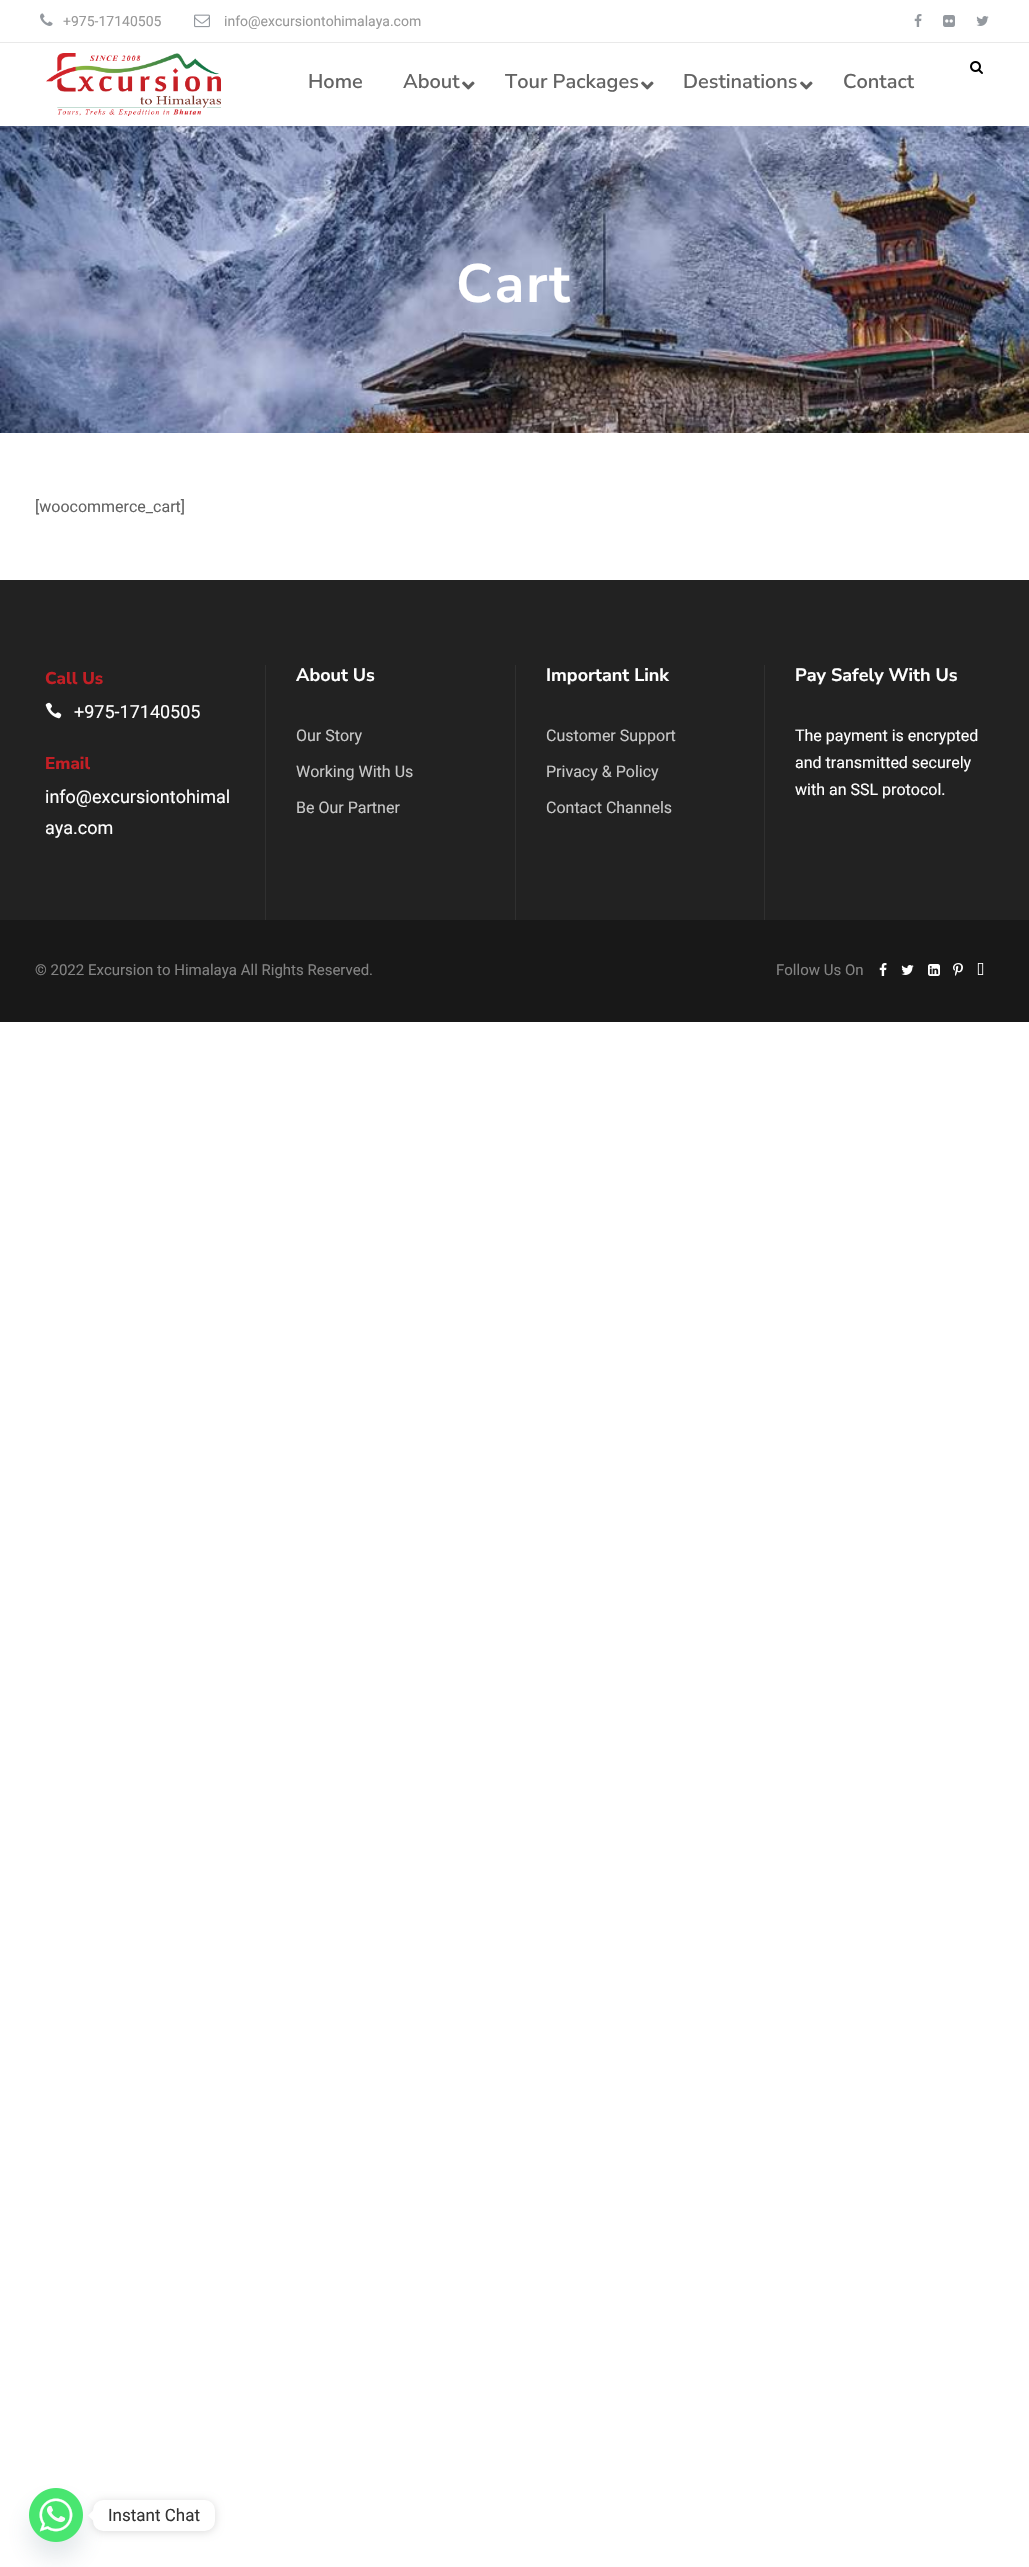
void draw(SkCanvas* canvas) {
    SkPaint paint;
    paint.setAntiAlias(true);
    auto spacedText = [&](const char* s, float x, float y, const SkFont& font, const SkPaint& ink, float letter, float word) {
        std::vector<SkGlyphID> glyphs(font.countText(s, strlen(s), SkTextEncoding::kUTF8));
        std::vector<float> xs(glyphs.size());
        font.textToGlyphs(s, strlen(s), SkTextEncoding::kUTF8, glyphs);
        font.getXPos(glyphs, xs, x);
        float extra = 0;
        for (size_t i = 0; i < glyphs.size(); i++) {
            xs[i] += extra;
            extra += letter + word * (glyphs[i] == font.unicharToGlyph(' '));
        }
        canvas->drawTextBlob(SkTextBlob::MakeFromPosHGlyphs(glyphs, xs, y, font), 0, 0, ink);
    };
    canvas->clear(0xFFFFFFFF);
    paint.setColor(0xFFE9E9E9);
    canvas->drawRect(SkRect::MakeXYWH(0, 42, 1029, 1), paint);
    canvas->drawImageRect(SkImages::DeferredFromEncodedData(SkData::MakeFromFileName("img1.png")), SkRect::MakeXYWH(40, 13, 13, 13), SkSamplingOptions());
    SkFont font1(fontMgr->matchFamilyStyle("Roboto", SkFontStyle::Normal()), 14);
    font1.setSubpixel(true);
    paint.setColor(0xFF999999);
    canvas->drawString("+975-17140505", 63, 26, font1, paint);
    canvas->drawImageRect(SkImages::DeferredFromEncodedData(SkData::MakeFromFileName("img2.png")), SkRect::MakeXYWH(194, 14, 16, 14), SkSamplingOptions());
    canvas->drawString("info@excursiontohimalaya.com", 224, 26, font1, paint);
    canvas->drawImageRect(SkImages::DeferredFromEncodedData(SkData::MakeFromFileName("img3.png")), SkRect::MakeXYWH(914, 14, 8, 13), SkSamplingOptions());
    canvas->drawImageRect(SkImages::DeferredFromEncodedData(SkData::MakeFromFileName("img4.png")), SkRect::MakeXYWH(943, 15, 12, 12), SkSamplingOptions());
    canvas->drawImageRect(SkImages::DeferredFromEncodedData(SkData::MakeFromFileName("img5.png")), SkRect::MakeXYWH(976, 16, 13, 10), SkSamplingOptions());
    canvas->drawImageRect(SkImages::DeferredFromEncodedData(SkData::MakeFromFileName("img6.png")), SkRect::MakeXYWH(46, 53, 175, 63), SkSamplingOptions());
    canvas->drawImageRect(SkImages::DeferredFromEncodedData(SkData::MakeFromFileName("img7.png")), SkRect::MakeXYWH(970, 61, 13, 13), SkSamplingOptions());
    SkFont font2(fontMgr->matchFamilyStyle("Nunito Sans", SkFontStyle(600, SkFontStyle::kNormal_Width, SkFontStyle::kUpright_Slant)), 20);
    font2.setSubpixel(true);
    paint.setColor(0xFF636363);
    canvas->drawString("Home", 308, 88, font2, paint);
    canvas->drawString("About", 403, 88, font2, paint);
    canvas->drawImageRect(SkImages::DeferredFromEncodedData(SkData::MakeFromFileName("img8.png")), SkRect::MakeXYWH(462, 81, 13, 9), SkSamplingOptions());
    canvas->drawString("Tour Packages", 505, 88, font2, paint);
    canvas->drawImageRect(SkImages::DeferredFromEncodedData(SkData::MakeFromFileName("img8.png")), SkRect::MakeXYWH(641, 81, 13, 9), SkSamplingOptions());
    canvas->drawString("Destinations", 683, 88, font2, paint);
    canvas->drawImageRect(SkImages::DeferredFromEncodedData(SkData::MakeFromFileName("img8.png")), SkRect::MakeXYWH(800, 81, 13, 9), SkSamplingOptions());
    canvas->drawString("Contact", 843, 88, font2, paint);
    canvas->drawImageRect(SkImages::DeferredFromEncodedData(SkData::MakeFromFileName("img9.png")), SkRect::MakeXYWH(0, 126, 1029, 307), SkSamplingOptions());
    SkFont font3(fontMgr->matchFamilyStyle("Nunito Sans", SkFontStyle::Bold()), 54);
    font3.setSubpixel(true);
    paint.setColor(0xFFFFFFFF);
    spacedText("Cart", 456, 302, font3, paint, 2, 0);
    SkFont font4(fontMgr->matchFamilyStyle("Roboto", SkFontStyle::Normal()), 16);
    font4.setSubpixel(true);
    paint.setColor(0xFF636363);
    canvas->drawString("[woocommerce_cart]", 35, 512, font4, paint);
    paint.setColor(0xFF222222);
    canvas->drawRect(SkRect::MakeXYWH(0, 580, 1029, 340), paint);
    SkFont font5(fontMgr->matchFamilyStyle("Nunito Sans", SkFontStyle(800, SkFontStyle::kNormal_Width, SkFontStyle::kUpright_Slant)), 17);
    font5.setSubpixel(true);
    paint.setColor(0xFFC31F25);
    canvas->drawString("Call Us", 45, 684, font5, paint);
    canvas->drawImageRect(SkImages::DeferredFromEncodedData(SkData::MakeFromFileName("img10.png")), SkRect::MakeXYWH(45, 702, 17, 17), SkSamplingOptions());
    SkFont font6(fontMgr->matchFamilyStyle("Roboto", SkFontStyle::Normal()), 18);
    font6.setSubpixel(true);
    paint.setColor(0xFFFFFFFF);
    canvas->drawString("+975-17140505", 74, 718, font6, paint);
    paint.setColor(0xFFC31F25);
    canvas->drawString("Email", 45, 769, font5, paint);
    paint.setColor(0xFFFFFFFF);
    canvas->drawString("info@excursiontohimal", 45, 803, font6, paint);
    canvas->drawString("aya.com", 45, 834, font6, paint);
    paint.setColor(0xFF303030);
    canvas->drawRect(SkRect::MakeXYWH(265, 665, 1, 255), paint);
    SkFont font7(fontMgr->matchFamilyStyle("Nunito Sans", SkFontStyle::Bold()), 18);
    font7.setSubpixel(true);
    paint.setColor(0xFFFFFFFF);
    canvas->drawString("About Us", 296, 681, font7, paint);
    paint.setColor(0xFFC7C7C7);
    canvas->drawString("Our Story", 296, 741, font4, paint);
    canvas->drawString("Working With Us", 296, 777, font4, paint);
    canvas->drawString("Be Our Partner", 296, 813, font4, paint);
    paint.setColor(0xFF303030);
    canvas->drawRect(SkRect::MakeXYWH(515, 665, 1, 255), paint);
    paint.setColor(0xFFFFFFFF);
    canvas->drawString("Important Link", 546, 681, font7, paint);
    paint.setColor(0xFFC7C7C7);
    canvas->drawString("Customer Support", 546, 741, font4, paint);
    canvas->drawString("Privacy & Policy", 546, 777, font4, paint);
    canvas->drawString("Contact Channels", 546, 813, font4, paint);
    paint.setColor(0xFF303030);
    canvas->drawRect(SkRect::MakeXYWH(764, 665, 1, 255), paint);
    paint.setColor(0xFFFFFFFF);
    canvas->drawString("Pay Safely With Us", 795, 681, font7, paint);
    canvas->drawString("The payment is encrypted", 795, 741, font4, paint);
    canvas->drawString("and transmitted securely", 795, 768, font4, paint);
    canvas->drawString("with an SSL protocol.", 795, 795, font4, paint);
    paint.setColor(0xFF181818);
    canvas->drawRect(SkRect::MakeXYWH(0, 920, 1029, 102), paint);
    SkFont font8(fontMgr->matchFamilyStyle("Roboto", SkFontStyle::Normal()), 15);
    font8.setSubpixel(true);
    paint.setColor(0xFF838383);
    canvas->drawString("© 2022 Excursion to Himalaya All Rights Reserved.", 35, 975, font8, paint);
    canvas->drawString("Follow Us On", 776, 975, font8, paint);
    canvas->drawImageRect(SkImages::DeferredFromEncodedData(SkData::MakeFromFileName("img11.png")), SkRect::MakeXYWH(879, 963, 8, 13), SkSamplingOptions());
    canvas->drawImageRect(SkImages::DeferredFromEncodedData(SkData::MakeFromFileName("img12.png")), SkRect::MakeXYWH(901, 965, 13, 10), SkSamplingOptions());
    canvas->drawImageRect(SkImages::DeferredFromEncodedData(SkData::MakeFromFileName("img13.png")), SkRect::MakeXYWH(928, 964, 12, 12), SkSamplingOptions());
    canvas->drawImageRect(SkImages::DeferredFromEncodedData(SkData::MakeFromFileName("img14.png")), SkRect::MakeXYWH(953, 963, 10, 13), SkSamplingOptions());
    canvas->drawImageRect(SkImages::DeferredFromEncodedData(SkData::MakeFromFileName("img15.png")), SkRect::MakeXYWH(977, 963, 7, 12), SkSamplingOptions());
    paint.setColor(0x2949687E);
    paint.setMaskFilter(SkMaskFilter::MakeBlur(kNormal_SkBlurStyle, 12));
    canvas->drawRoundRect(SkRect::MakeXYWH(29, 2504, 54, 54), 27, 27, paint);
    paint.setMaskFilter(nullptr);
    canvas->drawImageRect(SkImages::DeferredFromEncodedData(SkData::MakeFromFileName("img16.png")), SkRect::MakeXYWH(29, 2488, 54, 54), SkSamplingOptions());
    paint.setColor(0x26000000);
    paint.setMaskFilter(SkMaskFilter::MakeBlur(kNormal_SkBlurStyle, 4));
    canvas->drawRoundRect(SkRect::MakeXYWH(93, 2501, 122, 31), 10, 10, paint);
    paint.setMaskFilter(nullptr);
    paint.setColor(0xFFFFFFFF);
    canvas->drawRoundRect(SkRect::MakeXYWH(93, 2500, 122, 31), 10, 10, paint);
    canvas->drawPath(SkPathBuilder().moveTo(93, 2510.5f).lineTo(93, 2520.5f).lineTo(88, 2515.5f).close().detach(), paint);
    SkFont font9(fontMgr->matchFamilyStyle("Roboto", SkFontStyle::Normal()), 17);
    font9.setSubpixel(true);
    paint.setColor(0xFF333333);
    canvas->drawString("Instant Chat", 108, 2521, font9, paint);
}
